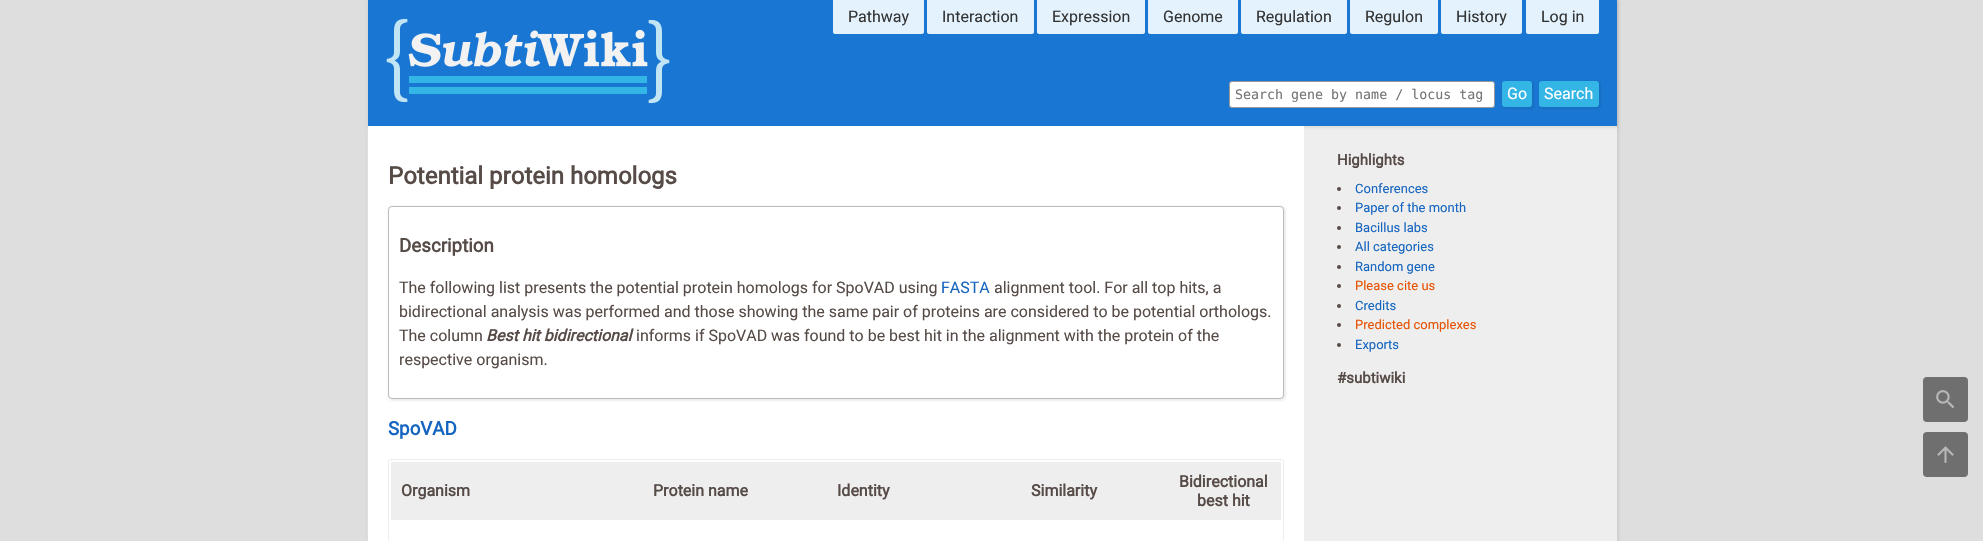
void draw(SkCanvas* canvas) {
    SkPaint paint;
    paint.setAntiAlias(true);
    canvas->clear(0xFFDEDEDE);
    paint.setColor(0x12000000);
    paint.setMaskFilter(SkMaskFilter::MakeBlur(kNormal_SkBlurStyle, 1));
    canvas->drawRect(SkRect::MakeXYWH(367, 0, 1252, 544), paint);
    paint.setMaskFilter(nullptr);
    paint.setColor(0xFFEEEEEE);
    canvas->drawRect(SkRect::MakeXYWH(1304, 126, 313, 415), paint);
    paint.setColor(0xFFDEDEDE);
    canvas->drawRect(SkRect::MakeXYWH(367, 0, 1, 541), paint);
    paint.setColor(0x12000000);
    paint.setMaskFilter(SkMaskFilter::MakeBlur(kNormal_SkBlurStyle, 1));
    canvas->drawRect(SkRect::MakeXYWH(368, 0, 1251, 128), paint);
    paint.setMaskFilter(nullptr);
    paint.setColor(0xFF1976D2);
    canvas->drawRect(SkRect::MakeXYWH(368, 0, 1249, 126), paint);
    canvas->drawImageRect(SkImages::DeferredFromEncodedData(SkData::MakeFromFileName("img1.png")), SkRect::MakeXYWH(386, 18, 284, 86), SkSamplingOptions());
    paint.setColor(0xFFE3F2FD);
    canvas->drawPath(SkPathBuilder().moveTo(833, 0).lineTo(924, 0).lineTo(924, 32).cubicTo(924, 33, 923, 34, 922, 34).lineTo(835, 34).cubicTo(834, 34, 833, 33, 833, 32).close().detach(), paint);
    SkFont font1(fontMgr->matchFamilyStyle("Roboto", SkFontStyle::Normal()), 16);
    font1.setSubpixel(true);
    paint.setColor(0xFF333333);
    canvas->drawString("Pathway", 848, 22, font1, paint);
    paint.setColor(0xFFE3F2FD);
    canvas->drawPath(SkPathBuilder().moveTo(927, 0).lineTo(1034, 0).lineTo(1034, 32).cubicTo(1034, 33, 1033, 34, 1032, 34).lineTo(929, 34).cubicTo(928, 34, 927, 33, 927, 32).close().detach(), paint);
    paint.setColor(0xFF333333);
    canvas->drawString("Interaction", 942, 22, font1, paint);
    paint.setColor(0xFFE3F2FD);
    canvas->drawPath(SkPathBuilder().moveTo(1037, 0).lineTo(1145, 0).lineTo(1145, 32).cubicTo(1145, 33, 1144, 34, 1143, 34).lineTo(1039, 34).cubicTo(1038, 34, 1037, 33, 1037, 32).close().detach(), paint);
    paint.setColor(0xFF333333);
    canvas->drawString("Expression", 1052, 22, font1, paint);
    paint.setColor(0xFFE3F2FD);
    canvas->drawPath(SkPathBuilder().moveTo(1148, 0).lineTo(1238, 0).lineTo(1238, 32).cubicTo(1238, 33, 1237, 34, 1236, 34).lineTo(1150, 34).cubicTo(1149, 34, 1148, 33, 1148, 32).close().detach(), paint);
    paint.setColor(0xFF333333);
    canvas->drawString("Genome", 1163, 22, font1, paint);
    paint.setColor(0xFFE3F2FD);
    canvas->drawPath(SkPathBuilder().moveTo(1241, 0).lineTo(1347, 0).lineTo(1347, 32).cubicTo(1347, 33, 1346, 34, 1345, 34).lineTo(1243, 34).cubicTo(1242, 34, 1241, 33, 1241, 32).close().detach(), paint);
    paint.setColor(0xFF333333);
    canvas->drawString("Regulation", 1256, 22, font1, paint);
    paint.setColor(0xFFE3F2FD);
    canvas->drawPath(SkPathBuilder().moveTo(1350, 0).lineTo(1438, 0).lineTo(1438, 32).cubicTo(1438, 33, 1437, 34, 1436, 34).lineTo(1352, 34).cubicTo(1351, 34, 1350, 33, 1350, 32).close().detach(), paint);
    paint.setColor(0xFF333333);
    canvas->drawString("Regulon", 1365, 22, font1, paint);
    paint.setColor(0xFFE3F2FD);
    canvas->drawPath(SkPathBuilder().moveTo(1441, 0).lineTo(1522, 0).lineTo(1522, 32).cubicTo(1522, 33, 1521, 34, 1520, 34).lineTo(1443, 34).cubicTo(1442, 34, 1441, 33, 1441, 32).close().detach(), paint);
    paint.setColor(0xFF333333);
    canvas->drawString("History", 1456, 22, font1, paint);
    paint.setColor(0xFFE3F2FD);
    canvas->drawPath(SkPathBuilder().moveTo(1526, 0).lineTo(1599, 0).lineTo(1599, 32).cubicTo(1599, 33, 1598, 34, 1597, 34).lineTo(1528, 34).cubicTo(1527, 34, 1526, 33, 1526, 32).close().detach(), paint);
    paint.setColor(0xFF333333);
    canvas->drawString("Log in", 1541, 22, font1, paint);
    paint.setColor(0xFFFFFFFF);
    canvas->drawRoundRect(SkRect::MakeXYWH(1229.5f, 81.5f, 265, 26), 2.5f, 2.5f, paint);
    paint.setStyle(SkPaint::kStroke_Style);
    paint.setStrokeWidth(1);
    paint.setColor(0xFF999999);
    canvas->drawRoundRect(SkRect::MakeXYWH(1229.5f, 81.5f, 265, 26), 2.5f, 2.5f, paint);
    SkFont font2(fontMgr->matchFamilyStyle("DejaVu Sans Mono", SkFontStyle::Normal()), 13.3f);
    font2.setSubpixel(true);
    paint.setStyle(SkPaint::kFill_Style);
    paint.setColor(0xFF757575);
    canvas->drawString("Search gene by name / locus tag", 1235, 99, font2, paint);
    paint.setColor(0x12000000);
    paint.setMaskFilter(SkMaskFilter::MakeBlur(kNormal_SkBlurStyle, 1));
    canvas->drawRoundRect(SkRect::MakeXYWH(1502, 81, 32, 28), 4, 4, paint);
    paint.setMaskFilter(nullptr);
    paint.setColor(0xFF33B5E5);
    canvas->drawRoundRect(SkRect::MakeXYWH(1502, 81, 30, 26), 3, 3, paint);
    paint.setColor(0xFFFFFFFF);
    canvas->drawString("Go", 1507, 99, font1, paint);
    paint.setColor(0x12000000);
    paint.setMaskFilter(SkMaskFilter::MakeBlur(kNormal_SkBlurStyle, 1));
    canvas->drawRoundRect(SkRect::MakeXYWH(1539, 81, 62, 28), 4, 4, paint);
    paint.setMaskFilter(nullptr);
    paint.setColor(0xFF33B5E5);
    canvas->drawRoundRect(SkRect::MakeXYWH(1539, 81, 60, 26), 3, 3, paint);
    paint.setColor(0xFFFFFFFF);
    canvas->drawString("Search", 1544, 99, font1, paint);
    canvas->drawRect(SkRect::MakeXYWH(368, 126, 936, 415), paint);
    SkFont font3(fontMgr->matchFamilyStyle("Roboto", SkFontStyle::Bold()), 24);
    font3.setSubpixel(true);
    paint.setColor(0xFF564B47);
    canvas->drawString("Potential protein homologs", 388, 184, font3, paint);
    paint.setColor(0x12000000);
    paint.setMaskFilter(SkMaskFilter::MakeBlur(kNormal_SkBlurStyle, 1));
    canvas->drawRoundRect(SkRect::MakeXYWH(388, 206, 898, 195), 5, 5, paint);
    paint.setMaskFilter(nullptr);
    paint.setColor(0xFFFFFFFF);
    canvas->drawRoundRect(SkRect::MakeXYWH(388.5f, 206.5f, 895, 192), 3.5f, 3.5f, paint);
    paint.setStyle(SkPaint::kStroke_Style);
    paint.setColor(0xFFBBBBBB);
    canvas->drawRoundRect(SkRect::MakeXYWH(388.5f, 206.5f, 895, 192), 3.5f, 3.5f, paint);
    SkFont font4(fontMgr->matchFamilyStyle("Roboto", SkFontStyle::Bold()), 18.75f);
    font4.setSubpixel(true);
    paint.setStyle(SkPaint::kFill_Style);
    paint.setColor(0xFF564B47);
    canvas->drawString("Description", 399, 252, font4, paint);
    canvas->drawString("The following list presents the potential protein homologs for SpoVAD using", 399, 293, font1, paint);
    paint.setColor(0xFF1565C0);
    canvas->drawString("FASTA", 941, 293, font1, paint);
    paint.setColor(0xFF564B47);
    canvas->drawString("alignment tool. For all top hits, a", 994, 293, font1, paint);
    canvas->drawString("bidirectional analysis was performed and those showing the same pair of proteins are considered to be potential orthologs.", 399, 317, font1, paint);
    canvas->drawString("The column", 399, 341, font1, paint);
    SkFont font5(fontMgr->matchFamilyStyle("Roboto", SkFontStyle::BoldItalic()), 16);
    font5.setSubpixel(true);
    canvas->drawString("Best hit bidirectional", 486, 341, font5, paint);
    canvas->drawString("informs if SpoVAD was found to be best hit in the alignment with the protein of the", 636, 341, font1, paint);
    canvas->drawString("respective organism.", 399, 365, font1, paint);
    paint.setColor(0xFF1565C0);
    canvas->drawString("SpoVAD", 388, 435, font4, paint);
    paint.setStyle(SkPaint::kStroke_Style);
    paint.setColor(0xFFEEEEEE);
    canvas->drawRoundRect(SkRect::MakeXYWH(388.5f, 459.5f, 895, 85), 2.5f, 2.5f, paint);
    paint.setStyle(SkPaint::kFill_Style);
    canvas->drawRect(SkRect::MakeXYWH(391, 462, 890, 58), paint);
    SkFont font6(fontMgr->matchFamilyStyle("Roboto", SkFontStyle::Bold()), 16);
    font6.setSubpixel(true);
    paint.setColor(0xFF564B47);
    canvas->drawString("Organism", 401, 496, font6, paint);
    canvas->drawString("Protein name", 653, 496, font6, paint);
    canvas->drawString("Identity", 837, 496, font6, paint);
    canvas->drawString("Similarity", 1031, 496, font6, paint);
    canvas->drawString("Bidirectional", 1179, 487, font6, paint);
    canvas->drawString("best hit", 1197, 506, font6, paint);
    SkFont font7(fontMgr->matchFamilyStyle("Roboto", SkFontStyle::Bold()), 15);
    font7.setSubpixel(true);
    canvas->drawString("Highlights", 1337, 165, font7, paint);
    canvas->drawCircle(1339, 189, 2, paint);
    SkFont font8(fontMgr->matchFamilyStyle("Roboto", SkFontStyle::Normal()), 13);
    font8.setSubpixel(true);
    paint.setColor(0xFF1565C0);
    canvas->drawString("Conferences", 1355, 193, font8, paint);
    paint.setColor(0xFF564B47);
    canvas->drawCircle(1339, 208, 2, paint);
    paint.setColor(0xFF1565C0);
    canvas->drawString("Paper of the month", 1355, 212, font8, paint);
    paint.setColor(0xFF564B47);
    canvas->drawCircle(1339, 228, 2, paint);
    paint.setColor(0xFF1565C0);
    canvas->drawString("Bacillus labs", 1355, 232, font8, paint);
    paint.setColor(0xFF564B47);
    canvas->drawCircle(1339, 247, 2, paint);
    paint.setColor(0xFF1565C0);
    canvas->drawString("All categories", 1355, 251, font8, paint);
    paint.setColor(0xFF564B47);
    canvas->drawCircle(1339, 267, 2, paint);
    paint.setColor(0xFF1565C0);
    canvas->drawString("Random gene", 1355, 271, font8, paint);
    paint.setColor(0xFF564B47);
    canvas->drawCircle(1339, 286, 2, paint);
    paint.setColor(0xFFE65100);
    canvas->drawString("Please cite us", 1355, 290, font8, paint);
    paint.setColor(0xFF564B47);
    canvas->drawCircle(1339, 306, 2, paint);
    paint.setColor(0xFF1565C0);
    canvas->drawString("Credits", 1355, 310, font8, paint);
    paint.setColor(0xFF564B47);
    canvas->drawCircle(1339, 325, 2, paint);
    paint.setColor(0xFFE65100);
    canvas->drawString("Predicted complexes", 1355, 329, font8, paint);
    paint.setColor(0xFF564B47);
    canvas->drawCircle(1339, 345, 2, paint);
    paint.setColor(0xFF1565C0);
    canvas->drawString("Exports", 1355, 349, font8, paint);
    paint.setColor(0xFF564B47);
    canvas->drawString("#subtiwiki", 1337, 383, font7, paint);
    paint.setColor(0xFF6F6F6F);
    canvas->drawRoundRect(SkRect::MakeXYWH(1923, 377, 45, 45), 4, 4, paint);
    canvas->drawImageRect(SkImages::DeferredFromEncodedData(SkData::MakeFromFileName("img2.png")), SkRect::MakeXYWH(1936, 390, 19, 19), SkSamplingOptions());
    canvas->drawRoundRect(SkRect::MakeXYWH(1923, 432, 45, 45), 4, 4, paint);
    canvas->drawImageRect(SkImages::DeferredFromEncodedData(SkData::MakeFromFileName("img3.png")), SkRect::MakeXYWH(1937, 446, 17, 17), SkSamplingOptions());
}
